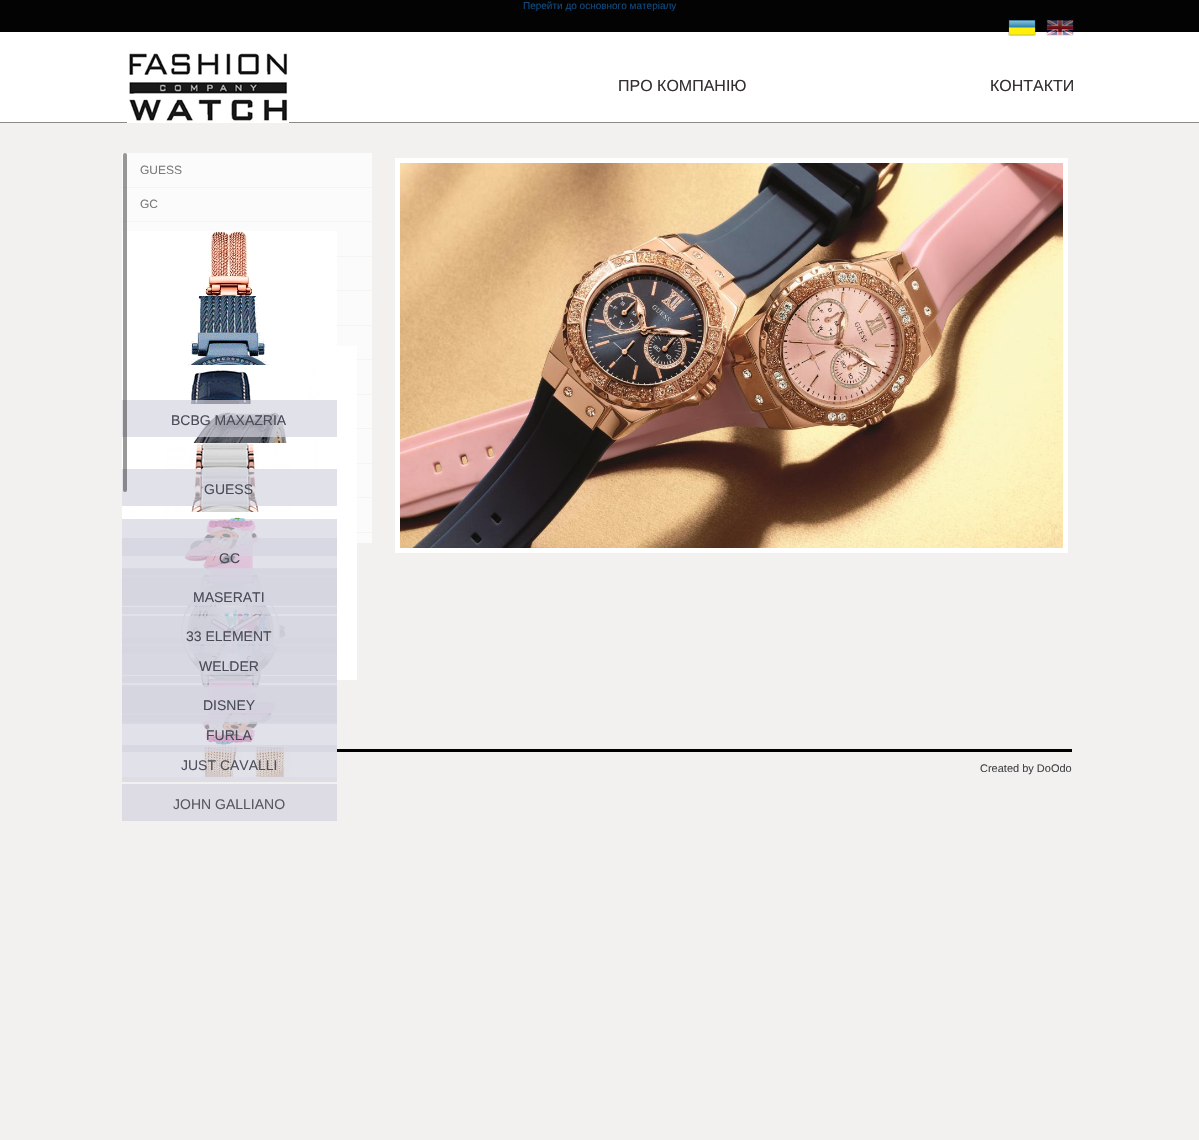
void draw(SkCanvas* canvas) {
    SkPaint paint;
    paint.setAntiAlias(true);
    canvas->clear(0xFFF3F0F0);
    canvas->drawImageRect(SkImages::DeferredFromEncodedData(SkData::MakeFromFileName("img1.png")), SkRect::MakeXYWH(0, 0, 1199, 123), SkSamplingOptions());
    SkFont font1(fontMgr->matchFamilyStyle("Liberation Sans", SkFontStyle::Normal()), 10);
    font1.setSubpixel(true);
    paint.setColor(0xFF0F497D);
    canvas->drawString("Перейти до основного матеріалу", 523, 9, font1, paint);
    canvas->drawImageRect(SkImages::DeferredFromEncodedData(SkData::MakeFromFileName("img2.png")), SkRect::MakeXYWH(1008, 20, 28, 16), SkSamplingOptions());
    canvas->drawImageRect(SkImages::DeferredFromEncodedData(SkData::MakeFromFileName("img3.png")), SkRect::MakeXYWH(1046, 20, 28, 16), SkSamplingOptions());
    canvas->drawImageRect(SkImages::DeferredFromEncodedData(SkData::MakeFromFileName("img4.png")), SkRect::MakeXYWH(127, 53, 162, 70), SkSamplingOptions());
    SkFont font2(fontMgr->matchFamilyStyle("Liberation Sans", SkFontStyle::Normal()), 16);
    font2.setSubpixel(true);
    paint.setColor(0xFF343030);
    canvas->drawString("ПРО КОМПАНІЮ", 618, 91, font2, paint);
    canvas->drawString("КОНТАКТИ", 990, 91, font2, paint);
    paint.setColor(0xFFFBFBFB);
    canvas->drawRect(SkRect::MakeXYWH(122, 153, 250, 390), paint);
    paint.setColor(0xFFF5F4F3);
    canvas->drawRect(SkRect::MakeXYWH(122, 187, 250, 1), paint);
    canvas->drawRect(SkRect::MakeXYWH(122, 221, 250, 1), paint);
    canvas->drawImageRect(SkImages::DeferredFromEncodedData(SkData::MakeFromFileName("img6.png")), SkRect::MakeXYWH(122, 346, 235, 215), SkSamplingOptions());
    canvas->drawImageRect(SkImages::DeferredFromEncodedData(SkData::MakeFromFileName("img7.png")), SkRect::MakeXYWH(122, 231, 215, 231), SkSamplingOptions());
    canvas->drawImageRect(SkImages::DeferredFromEncodedData(SkData::MakeFromFileName("img10.png")), SkRect::MakeXYWH(154, 365, 169, 138), SkSamplingOptions());
    canvas->drawImageRect(SkImages::DeferredFromEncodedData(SkData::MakeFromFileName("img9.png")), SkRect::MakeXYWH(122, 503, 215, 39), SkSamplingOptions());
    canvas->drawImageRect(SkImages::DeferredFromEncodedData(SkData::MakeFromFileName("img12.png")), SkRect::MakeXYWH(153, 404, 161, 138), SkSamplingOptions());
    paint.setColor(0xB3D4D4DF);
    canvas->drawRect(SkRect::MakeXYWH(122, 400, 215, 37), paint);
    canvas->drawImageRect(SkImages::DeferredFromEncodedData(SkData::MakeFromFileName("img14.png")), SkRect::MakeXYWH(154, 473, 154, 69), SkSamplingOptions());
    canvas->drawImageRect(SkImages::DeferredFromEncodedData(SkData::MakeFromFileName("img16.png")), SkRect::MakeXYWH(122, 542, 215, 235), SkSamplingOptions());
    canvas->drawImageRect(SkImages::DeferredFromEncodedData(SkData::MakeFromFileName("img13.png")), SkRect::MakeXYWH(165, 443, 126, 235), SkSamplingOptions());
    canvas->drawRect(SkRect::MakeXYWH(122, 469, 215, 37), paint);
    paint.setColor(0x66000000);
    canvas->drawRoundRect(SkRect::MakeXYWH(123, 153, 4, 339), 2, 2, paint);
    SkFont font3(fontMgr->matchFamilyStyle("Liberation Sans", SkFontStyle::Normal()), 12);
    font3.setSubpixel(true);
    paint.setColor(0xFF7C7A7A);
    canvas->drawString("GUESS", 140, 174, font3, paint);
    canvas->drawString("GC", 140, 208, font3, paint);
    paint.setColor(0xFFF5F4F3);
    canvas->drawRect(SkRect::MakeXYWH(337, 256, 35, 1), paint);
    canvas->drawRect(SkRect::MakeXYWH(337, 290, 35, 1), paint);
    canvas->drawRect(SkRect::MakeXYWH(337, 325, 35, 1), paint);
    canvas->drawRect(SkRect::MakeXYWH(357, 359, 15, 1), paint);
    canvas->drawRect(SkRect::MakeXYWH(357, 394, 15, 1), paint);
    canvas->drawRect(SkRect::MakeXYWH(357, 428, 15, 1), paint);
    canvas->drawRect(SkRect::MakeXYWH(357, 463, 15, 1), paint);
    canvas->drawRect(SkRect::MakeXYWH(357, 497, 15, 1), paint);
    canvas->drawRect(SkRect::MakeXYWH(357, 532, 15, 1), paint);
    paint.setStyle(SkPaint::kStroke_Style);
    paint.setStrokeWidth(5);
    paint.setColor(0xFFFFFFFF);
    canvas->drawRect(SkRect::MakeXYWH(397.5f, 160.5f, 668, 390), paint);
    canvas->drawImageRect(SkImages::DeferredFromEncodedData(SkData::MakeFromFileName("img5.png")), SkRect::MakeXYWH(400, 163, 663, 385), SkSamplingOptions());
    canvas->drawImageRect(SkImages::DeferredFromEncodedData(SkData::MakeFromFileName("img15.png")), SkRect::MakeXYWH(169, 512, 129, 235), SkSamplingOptions());
    paint.setStyle(SkPaint::kFill_Style);
    paint.setColor(0xB3D4D4DF);
    canvas->drawRect(SkRect::MakeXYWH(122, 519, 215, 37), paint);
    SkFont font4(fontMgr->matchFamilyStyle("Liberation Sans", SkFontStyle::Normal()), 14);
    font4.setSubpixel(true);
    paint.setColor(0xFF494B57);
    canvas->drawString("BCBG MAXAZRIA", 171, 425, font4, paint);
    canvas->drawImageRect(SkImages::DeferredFromEncodedData(SkData::MakeFromFileName("img8.png")), SkRect::MakeXYWH(162, 296, 155, 69), SkSamplingOptions());
    canvas->drawString("GUESS", 204, 494, font4, paint);
    paint.setColor(0xB3D4D4DF);
    canvas->drawRect(SkRect::MakeXYWH(122, 687, 215, 37), paint);
    canvas->drawRect(SkRect::MakeXYWH(122, 676, 215, 37), paint);
    canvas->drawRect(SkRect::MakeXYWH(122, 569, 215, 37), paint);
    canvas->drawRect(SkRect::MakeXYWH(122, 568, 215, 37), paint);
    canvas->drawRect(SkRect::MakeXYWH(122, 538, 215, 37), paint);
    paint.setColor(0xFF494B57);
    canvas->drawString("GC", 219, 563, font4, paint);
    paint.setColor(0xB3D4D4DF);
    canvas->drawRect(SkRect::MakeXYWH(122, 638, 215, 37), paint);
    canvas->drawImageRect(SkImages::DeferredFromEncodedData(SkData::MakeFromFileName("img11.png")), SkRect::MakeXYWH(337, 561, 20, 119), SkSamplingOptions());
    canvas->drawRect(SkRect::MakeXYWH(122, 607, 215, 37), paint);
    canvas->drawRect(SkRect::MakeXYWH(122, 577, 215, 37), paint);
    paint.setColor(0xFF494B57);
    canvas->drawString("MASERATI", 193, 602, font4, paint);
    paint.setColor(0xB3D4D4DF);
    canvas->drawRect(SkRect::MakeXYWH(122, 646, 215, 37), paint);
    canvas->drawRect(SkRect::MakeXYWH(122, 616, 215, 37), paint);
    paint.setColor(0xFF494B57);
    canvas->drawString("33 ELEMENT", 186, 641, font4, paint);
    canvas->drawString("WELDER", 199, 671, font4, paint);
    paint.setColor(0xB3D4D4DF);
    canvas->drawRect(SkRect::MakeXYWH(122, 745, 215, 37), paint);
    canvas->drawRect(SkRect::MakeXYWH(122, 715, 215, 37), paint);
    canvas->drawRect(SkRect::MakeXYWH(122, 685, 215, 37), paint);
    paint.setColor(0xFF494B57);
    canvas->drawString("DISNEY", 203, 710, font4, paint);
    canvas->drawString("FURLA", 206, 740, font4, paint);
    paint.setColor(0xFF50505B);
    canvas->drawString("JUST CAVALLI", 181, 770, font4, paint);
    paint.setColor(0xFFDDDCE4);
    canvas->drawRect(SkRect::MakeXYWH(122, 784, 215, 37), paint);
    paint.setColor(0xFF575862);
    canvas->drawString("JOHN GALLIANO", 173, 809, font4, paint);
    paint.setColor(0xFF000000);
    canvas->drawRect(SkRect::MakeXYWH(337, 749, 735, 3), paint);
    SkFont font5(fontMgr->matchFamilyStyle("Liberation Sans", SkFontStyle::Normal()), 11);
    font5.setSubpixel(true);
    paint.setColor(0xFF424447);
    canvas->drawString("Created by DoOdo", 980, 772, font5, paint);
}
